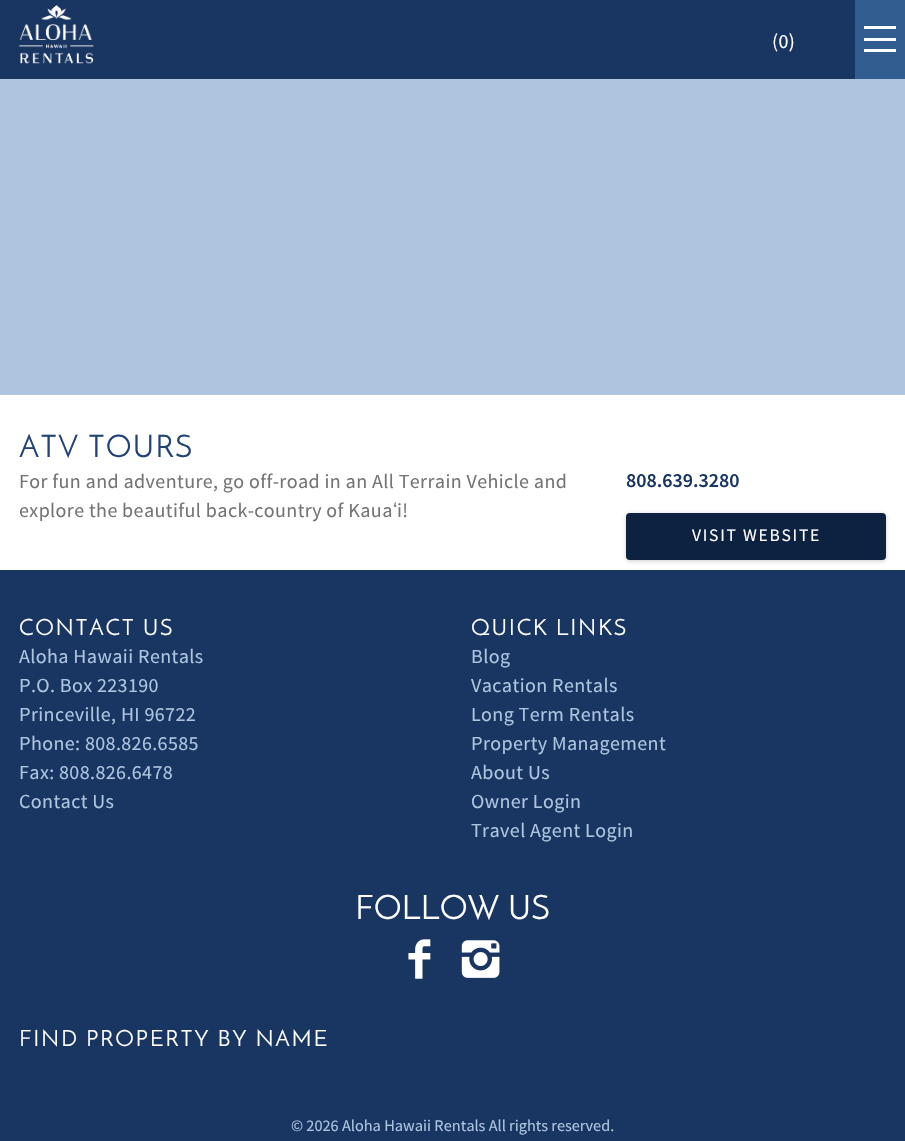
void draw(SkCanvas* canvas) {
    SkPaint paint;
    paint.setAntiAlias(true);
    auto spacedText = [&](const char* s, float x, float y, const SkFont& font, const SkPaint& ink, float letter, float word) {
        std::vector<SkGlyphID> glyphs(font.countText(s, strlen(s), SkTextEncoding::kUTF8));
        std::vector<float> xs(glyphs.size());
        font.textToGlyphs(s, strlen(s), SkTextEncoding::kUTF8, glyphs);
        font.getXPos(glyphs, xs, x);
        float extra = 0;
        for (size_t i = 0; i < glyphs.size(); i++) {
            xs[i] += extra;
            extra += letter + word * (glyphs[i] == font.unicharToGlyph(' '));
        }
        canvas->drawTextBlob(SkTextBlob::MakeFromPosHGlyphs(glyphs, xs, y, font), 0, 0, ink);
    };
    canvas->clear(0xFFFFFFFF);
    paint.setColor(0xFF193561);
    canvas->drawRect(SkRect::MakeXYWH(0, 0, 855, 79), paint);
    canvas->drawImageRect(SkImages::DeferredFromEncodedData(SkData::MakeFromFileName("img1.png")), SkRect::MakeXYWH(18, 5, 76, 59), SkSamplingOptions());
    SkFont font1(fontMgr->matchFamilyStyle("Source Sans Pro", SkFontStyle::Normal()), 20);
    font1.setSubpixel(true);
    paint.setColor(0xFFFFFFFF);
    spacedText("(0)", 772, 48, font1, paint, 0.4f, 0);
    paint.setColor(0xFF315D91);
    canvas->drawRect(SkRect::MakeXYWH(855, 0, 50, 79), paint);
    paint.setColor(0xFFFFFFFF);
    canvas->drawRect(SkRect::MakeXYWH(864, 38, 32, 3), paint);
    canvas->drawRect(SkRect::MakeXYWH(864, 26, 32, 3), paint);
    canvas->drawRect(SkRect::MakeXYWH(864, 49, 32, 3), paint);
    paint.setColor(0xFFAEC5E0);
    canvas->drawRect(SkRect::MakeXYWH(0, 79, 905, 316), paint);
    SkFont font2(fontMgr->matchFamilyStyle("Josefin Sans", SkFontStyle::Normal()), 31.25f);
    font2.setSubpixel(true);
    paint.setColor(0xFF224377);
    spacedText("ATV TOURS", 19, 457, font2, paint, 1, 0);
    paint.setColor(0xFF747474);
    spacedText("For fun and adventure, go off-road in an All Terrain Vehicle and", 19, 488, font1, paint, 0.4f, 0);
    spacedText("explore the beautiful back-country of Kaua", 19, 517, font1, paint, 0.4f, 0);
    SkFont font3(fontMgr->matchFamilyStyle("Liberation Sans", SkFontStyle::Normal()), 20);
    font3.setSubpixel(true);
    spacedText("ʻ", 393, 517, font3, paint, 0.4f, 0);
    spacedText("i!", 397, 517, font1, paint, 0.4f, 0);
    SkFont font4(fontMgr->matchFamilyStyle("Source Sans Pro", SkFontStyle(600, SkFontStyle::kNormal_Width, SkFontStyle::kUpright_Slant)), 20);
    font4.setSubpixel(true);
    paint.setColor(0xFF193561);
    canvas->drawString("808.639.3280", 626, 487, font4, paint);
    paint.setColor(0x33000000);
    paint.setMaskFilter(SkMaskFilter::MakeBlur(kNormal_SkBlurStyle, 2));
    canvas->drawRoundRect(SkRect::MakeXYWH(626, 514, 260, 47), 4, 4, paint);
    paint.setMaskFilter(nullptr);
    paint.setColor(0xFF0D2140);
    canvas->drawRoundRect(SkRect::MakeXYWH(626, 513, 260, 47), 4, 4, paint);
    SkFont font5(fontMgr->matchFamilyStyle("Source Sans Pro", SkFontStyle::Normal()), 17.5f);
    font5.setSubpixel(true);
    paint.setColor(0xFFFFFFFF);
    spacedText("VISIT WEBSITE", 692, 541, font5, paint, 1.75f, 0);
    paint.setColor(0xFF193561);
    canvas->drawRect(SkRect::MakeXYWH(0, 570, 905, 571), paint);
    SkFont font6(fontMgr->matchFamilyStyle("Josefin Sans", SkFontStyle::Normal()), 22.5f);
    font6.setSubpixel(true);
    paint.setColor(0xFFFFFFFF);
    spacedText("CONTACT US", 19, 635, font6, paint, 1.7f, 0);
    paint.setColor(0xFFAEC5E0);
    spacedText("Aloha Hawaii Rentals", 19, 663, font1, paint, 0.4f, 0);
    spacedText("P.O. Box 223190", 19, 692, font1, paint, 0.4f, 0);
    spacedText("Princeville, HI 96722", 19, 721, font1, paint, 0.4f, 0);
    spacedText("Phone: 808.826.6585", 19, 750, font1, paint, 0.4f, 0);
    spacedText("Fax: 808.826.6478", 19, 779, font1, paint, 0.4f, 0);
    spacedText("Contact Us", 19, 808, font1, paint, 0.4f, 0);
    paint.setColor(0xFFFFFFFF);
    spacedText("QUICK LINKS", 471, 635, font6, paint, 1.7f, 0);
    paint.setColor(0xFFAEC5E0);
    spacedText("Blog", 471, 663, font1, paint, 0.4f, 0);
    spacedText("Vacation Rentals", 471, 692, font1, paint, 0.4f, 0);
    spacedText("Long Term Rentals", 471, 721, font1, paint, 0.4f, 0);
    spacedText("Property Management", 471, 750, font1, paint, 0.4f, 0);
    spacedText("About Us", 471, 779, font1, paint, 0.4f, 0);
    spacedText("Owner Login", 471, 808, font1, paint, 0.4f, 0);
    spacedText("Travel Agent Login", 471, 837, font1, paint, 0.4f, 0);
    SkFont font7(fontMgr->matchFamilyStyle("Josefin Sans", SkFontStyle::Normal()), 33.75f);
    font7.setSubpixel(true);
    paint.setColor(0xFFFFFFFF);
    canvas->drawString("FOLLOW US", 355, 919, font7, paint);
    canvas->drawImageRect(SkImages::DeferredFromEncodedData(SkData::MakeFromFileName("img2.png")), SkRect::MakeXYWH(408, 939, 23, 40), SkSamplingOptions());
    canvas->drawImageRect(SkImages::DeferredFromEncodedData(SkData::MakeFromFileName("img3.png")), SkRect::MakeXYWH(461, 940, 39, 38), SkSamplingOptions());
    spacedText("FIND PROPERTY BY NAME", 19, 1046, font6, paint, 1.7f, 0);
    SkFont font8(fontMgr->matchFamilyStyle("Source Sans Pro", SkFontStyle::Normal()), 16.25f);
    font8.setSubpixel(true);
    paint.setColor(0xFFAEC5E0);
    canvas->drawString("© 2026 Aloha Hawaii Rentals All rights reserved.", 291, 1131, font8, paint);
}
